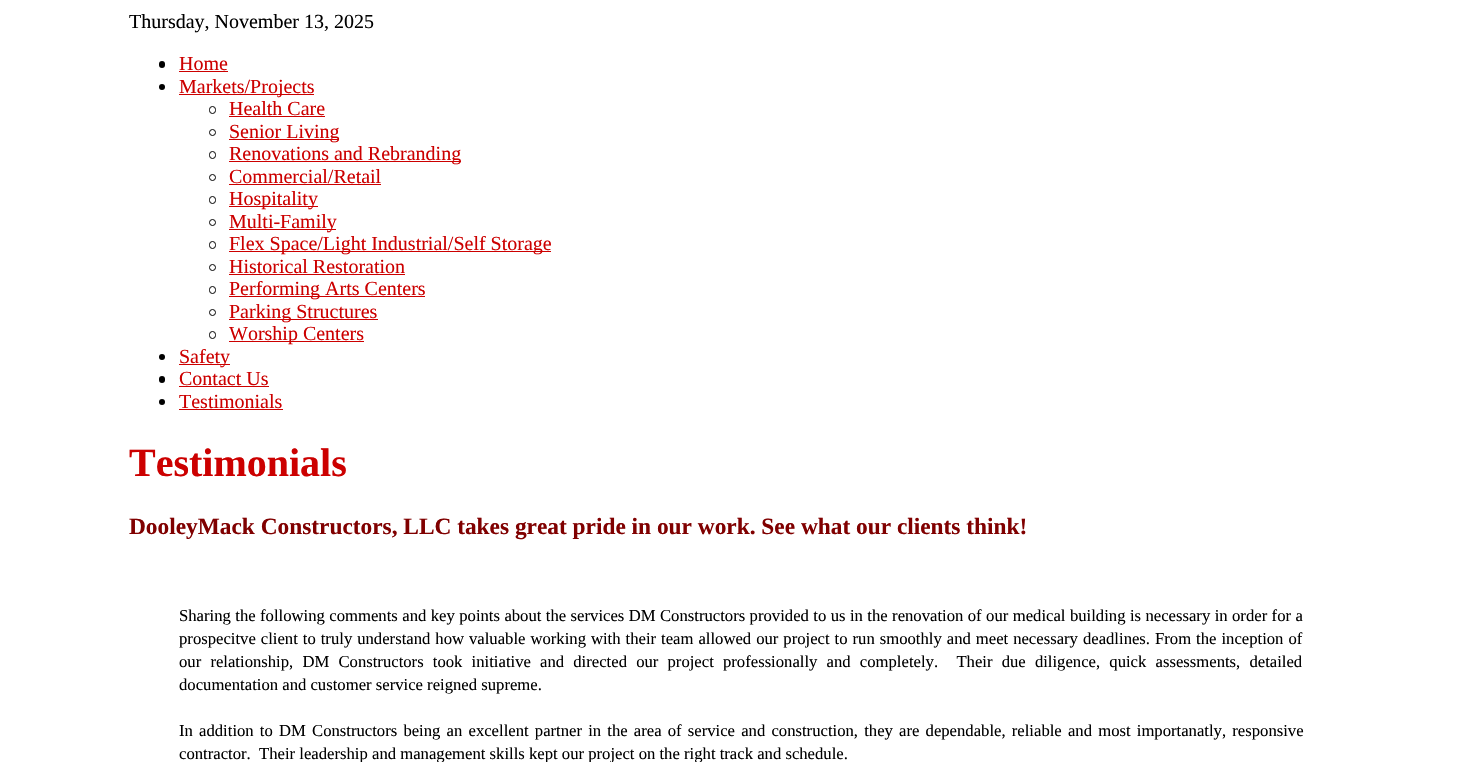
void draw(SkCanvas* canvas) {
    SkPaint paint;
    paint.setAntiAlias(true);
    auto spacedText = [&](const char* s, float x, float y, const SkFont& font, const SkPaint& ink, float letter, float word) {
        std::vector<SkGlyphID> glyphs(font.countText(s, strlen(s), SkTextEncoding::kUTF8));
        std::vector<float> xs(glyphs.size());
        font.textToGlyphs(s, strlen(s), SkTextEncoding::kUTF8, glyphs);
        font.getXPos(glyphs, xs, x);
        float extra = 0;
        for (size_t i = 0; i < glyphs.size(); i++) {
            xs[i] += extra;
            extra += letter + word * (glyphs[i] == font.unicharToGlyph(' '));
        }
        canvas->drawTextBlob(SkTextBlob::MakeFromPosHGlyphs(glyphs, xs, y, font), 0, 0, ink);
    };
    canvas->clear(0xFFFFFFFF);
    SkFont font1(fontMgr->matchFamilyStyle("Liberation Serif", SkFontStyle::Normal()), 20);
    font1.setSubpixel(true);
    paint.setColor(0xFF000000);
    canvas->drawString("Thursday, November 13, 2025", 129, 28, font1, paint);
    canvas->drawRoundRect(SkRect::MakeXYWH(159, 61, 6, 7), 3, 3, paint);
    paint.setColor(0xFFCC0000);
    canvas->drawString("Home", 179, 70, font1, paint);
    canvas->drawRect(SkRect::MakeXYWH(179, 71, 49, 1), paint);
    paint.setColor(0xFF000000);
    canvas->drawCircle(162, 87, 3, paint);
    paint.setColor(0xFFCC0000);
    canvas->drawRect(SkRect::MakeXYWH(179, 94, 135, 1), paint);
    canvas->drawString("Markets/Projects", 179, 93, font1, paint);
    paint.setStyle(SkPaint::kStroke_Style);
    paint.setStrokeWidth(1);
    paint.setColor(0xFF000000);
    canvas->drawRoundRect(SkRect::MakeXYWH(209.5f, 106.5f, 6, 7), 3, 3, paint);
    paint.setStyle(SkPaint::kFill_Style);
    paint.setColor(0xFFCC0000);
    canvas->drawString("Health Care", 229, 115, font1, paint);
    canvas->drawRect(SkRect::MakeXYWH(229, 116, 96, 1), paint);
    paint.setStyle(SkPaint::kStroke_Style);
    paint.setColor(0xFF000000);
    canvas->drawCircle(212.5f, 132.5f, 3, paint);
    paint.setStyle(SkPaint::kFill_Style);
    paint.setColor(0xFFCC0000);
    canvas->drawRect(SkRect::MakeXYWH(229, 139, 110, 1), paint);
    canvas->drawString("Senior Living", 229, 138, font1, paint);
    paint.setStyle(SkPaint::kStroke_Style);
    paint.setColor(0xFF000000);
    canvas->drawRoundRect(SkRect::MakeXYWH(209.5f, 151.5f, 6, 7), 3, 3, paint);
    paint.setStyle(SkPaint::kFill_Style);
    paint.setColor(0xFFCC0000);
    canvas->drawRect(SkRect::MakeXYWH(229, 161, 232, 1), paint);
    canvas->drawString("Renovations and Rebranding", 229, 160, font1, paint);
    paint.setStyle(SkPaint::kStroke_Style);
    paint.setColor(0xFF000000);
    canvas->drawCircle(212.5f, 177.5f, 3, paint);
    paint.setStyle(SkPaint::kFill_Style);
    paint.setColor(0xFFCC0000);
    canvas->drawString("Commercial/Retail", 229, 183, font1, paint);
    canvas->drawRect(SkRect::MakeXYWH(229, 184, 152, 1), paint);
    paint.setStyle(SkPaint::kStroke_Style);
    paint.setColor(0xFF000000);
    canvas->drawRoundRect(SkRect::MakeXYWH(209.5f, 196.5f, 6, 7), 3, 3, paint);
    paint.setStyle(SkPaint::kFill_Style);
    paint.setColor(0xFFCC0000);
    canvas->drawRect(SkRect::MakeXYWH(229, 206, 89, 1), paint);
    canvas->drawString("Hospitality", 229, 205, font1, paint);
    paint.setStyle(SkPaint::kStroke_Style);
    paint.setColor(0xFF000000);
    canvas->drawCircle(212.5f, 222.5f, 3, paint);
    paint.setStyle(SkPaint::kFill_Style);
    paint.setColor(0xFFCC0000);
    canvas->drawRect(SkRect::MakeXYWH(229, 229, 107, 1), paint);
    canvas->drawString("Multi-Family", 229, 228, font1, paint);
    paint.setStyle(SkPaint::kStroke_Style);
    paint.setColor(0xFF000000);
    canvas->drawRoundRect(SkRect::MakeXYWH(209.5f, 241.5f, 6, 7), 3, 3, paint);
    paint.setStyle(SkPaint::kFill_Style);
    paint.setColor(0xFFCC0000);
    canvas->drawRect(SkRect::MakeXYWH(229, 251, 322, 1), paint);
    canvas->drawString("Flex Space/Light Industrial/Self Storage", 229, 250, font1, paint);
    paint.setStyle(SkPaint::kStroke_Style);
    paint.setColor(0xFF000000);
    canvas->drawCircle(212.5f, 267.5f, 3, paint);
    paint.setStyle(SkPaint::kFill_Style);
    paint.setColor(0xFFCC0000);
    canvas->drawString("Historical Restoration", 229, 273, font1, paint);
    canvas->drawRect(SkRect::MakeXYWH(229, 274, 176, 1), paint);
    paint.setStyle(SkPaint::kStroke_Style);
    paint.setColor(0xFF000000);
    canvas->drawRoundRect(SkRect::MakeXYWH(209.5f, 286.5f, 6, 7), 3, 3, paint);
    paint.setStyle(SkPaint::kFill_Style);
    paint.setColor(0xFFCC0000);
    canvas->drawRect(SkRect::MakeXYWH(229, 296, 196, 1), paint);
    canvas->drawString("Performing Arts Centers", 229, 295, font1, paint);
    paint.setStyle(SkPaint::kStroke_Style);
    paint.setColor(0xFF000000);
    canvas->drawCircle(212.5f, 312.5f, 3, paint);
    paint.setStyle(SkPaint::kFill_Style);
    paint.setColor(0xFFCC0000);
    canvas->drawRect(SkRect::MakeXYWH(229, 319, 149, 1), paint);
    canvas->drawString("Parking Structures", 229, 318, font1, paint);
    paint.setStyle(SkPaint::kStroke_Style);
    paint.setColor(0xFF000000);
    canvas->drawRoundRect(SkRect::MakeXYWH(209.5f, 331.5f, 6, 7), 3, 3, paint);
    paint.setStyle(SkPaint::kFill_Style);
    paint.setColor(0xFFCC0000);
    canvas->drawRect(SkRect::MakeXYWH(229, 341, 135, 1), paint);
    canvas->drawString("Worship Centers", 229, 340, font1, paint);
    paint.setColor(0xFF000000);
    canvas->drawCircle(162, 357, 3, paint);
    paint.setColor(0xFFCC0000);
    canvas->drawRect(SkRect::MakeXYWH(179, 364, 51, 1), paint);
    canvas->drawString("Safety", 179, 363, font1, paint);
    paint.setColor(0xFF000000);
    canvas->drawRoundRect(SkRect::MakeXYWH(159, 376, 6, 7), 3, 3, paint);
    paint.setColor(0xFFCC0000);
    canvas->drawString("Contact Us", 179, 385, font1, paint);
    canvas->drawRect(SkRect::MakeXYWH(179, 386, 90, 1), paint);
    paint.setColor(0xFF000000);
    canvas->drawCircle(162, 402, 3, paint);
    paint.setColor(0xFFCC0000);
    canvas->drawString("Testimonials", 179, 408, font1, paint);
    canvas->drawRect(SkRect::MakeXYWH(179, 409, 104, 1), paint);
    SkFont font2(fontMgr->matchFamilyStyle("Liberation Serif", SkFontStyle::Bold()), 40);
    font2.setSubpixel(true);
    canvas->drawString("Testimonials", 129, 476, font2, paint);
    SkFont font3(fontMgr->matchFamilyStyle("Liberation Serif", SkFontStyle::Bold()), 23.35f);
    font3.setSubpixel(true);
    paint.setColor(0xFF800000);
    canvas->drawString("DooleyMack Constructors, LLC takes great pride in our work. See what our clients think!", 129, 534, font3, paint);
    SkFont font4(fontMgr->matchFamilyStyle("Liberation Serif", SkFontStyle::Normal()), 16.67f);
    font4.setSubpixel(true);
    paint.setColor(0xFF000000);
    spacedText("Sharing the following comments and key points about the services DM Constructors provided to us in the renovation of our medical building is necessary in order for a", 179, 621, font4, paint, 0, 0.25f);
    spacedText("prospecitve client to truly understand how valuable working with their team allowed our project to run smoothly and meet necessary deadlines.", 179, 644, font4, paint, 0, 0.8f);
    spacedText("From the inception of", 1155, 644, font4, paint, 0, 0.8f);
    spacedText("our relationship, DM Constructors took initiative and directed our project professionally and completely.  Their due diligence, quick assessments, detailed", 179, 667, font4, paint, 0, 5);
    canvas->drawString("documentation and customer service reigned supreme.", 179, 690, font4, paint);
    spacedText("In addition to DM Constructors being an excellent partner in the area of service and construction, they are dependable, reliable and most importanatly, responsive", 179, 736, font4, paint, 0, 2);
    canvas->drawString("contractor.  Their leadership and management skills kept our project on the right track and schedule.", 179, 759, font4, paint);
}
